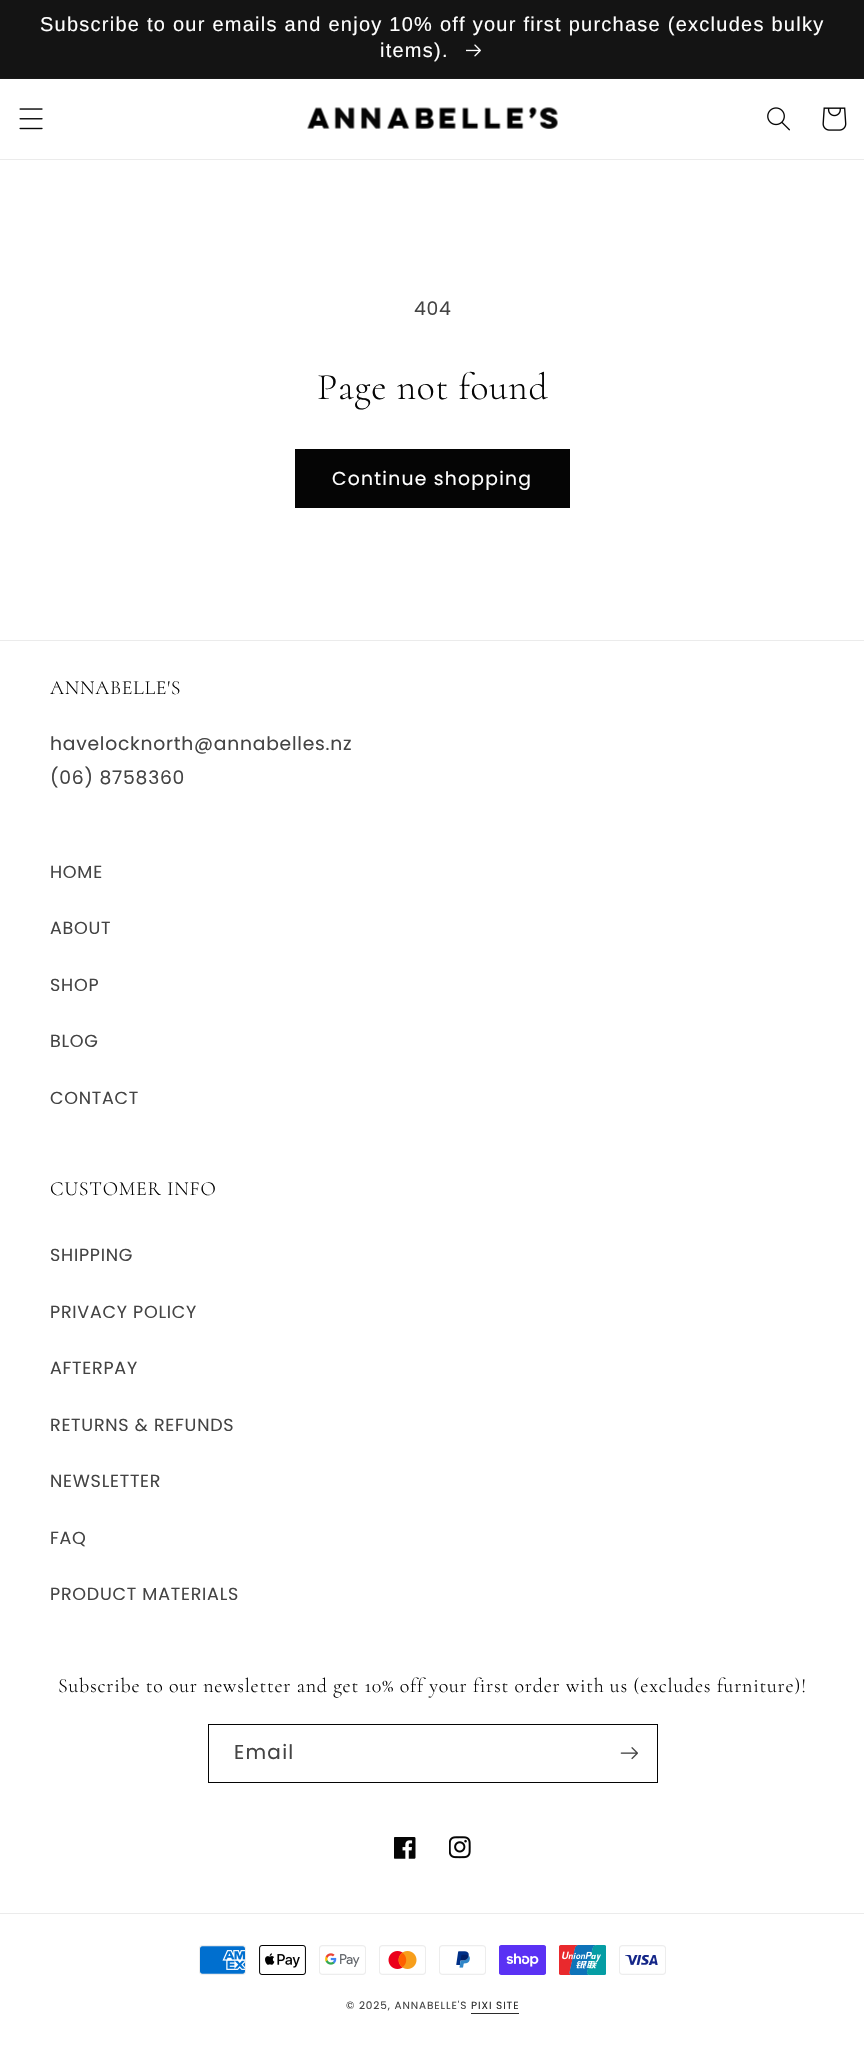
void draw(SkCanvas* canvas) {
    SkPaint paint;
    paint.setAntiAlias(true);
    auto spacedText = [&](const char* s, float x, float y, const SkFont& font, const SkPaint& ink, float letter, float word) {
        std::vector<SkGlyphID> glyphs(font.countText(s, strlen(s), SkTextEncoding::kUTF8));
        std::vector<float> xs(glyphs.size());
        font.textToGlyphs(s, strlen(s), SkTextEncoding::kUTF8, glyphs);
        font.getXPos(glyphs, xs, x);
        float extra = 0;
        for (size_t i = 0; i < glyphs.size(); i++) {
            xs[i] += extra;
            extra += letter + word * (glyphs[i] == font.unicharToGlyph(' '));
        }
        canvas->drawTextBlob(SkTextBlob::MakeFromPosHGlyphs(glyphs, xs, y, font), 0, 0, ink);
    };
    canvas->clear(0xFFFFFFFF);
    paint.setColor(0xFF191919);
    canvas->drawRect(SkRect::MakeXYWH(0, 78, 864, 1), paint);
    paint.setColor(0xFF141414);
    canvas->drawRect(SkRect::MakeXYWH(0, 0, 864, 78), paint);
    SkFont font1(fontMgr->matchFamilyStyle("Liberation Sans", SkFontStyle::Normal()), 20);
    font1.setSubpixel(true);
    paint.setColor(0xFFFFFFFF);
    spacedText("Subscribe to our emails and enjoy 10% off your first purchase (excludes bulky", 40, 31, font1, paint, 1.25f, 0);
    spacedText("items).", 380, 57, font1, paint, 1.25f, 0);
    canvas->drawImageRect(SkImages::DeferredFromEncodedData(SkData::MakeFromFileName("img1.png")), SkRect::MakeXYWH(466, 44, 15, 13), SkSamplingOptions());
    paint.setColor(0xFFEBEBEB);
    canvas->drawRect(SkRect::MakeXYWH(0, 159, 864, 1), paint);
    canvas->drawImageRect(SkImages::DeferredFromEncodedData(SkData::MakeFromFileName("img2.png")), SkRect::MakeXYWH(19, 108, 24, 22), SkSamplingOptions());
    canvas->drawImageRect(SkImages::DeferredFromEncodedData(SkData::MakeFromFileName("img3.png")), SkRect::MakeXYWH(307, 107, 251, 22), SkSamplingOptions());
    canvas->drawImageRect(SkImages::DeferredFromEncodedData(SkData::MakeFromFileName("img4.png")), SkRect::MakeXYWH(767, 107, 23, 24), SkSamplingOptions());
    canvas->drawImageRect(SkImages::DeferredFromEncodedData(SkData::MakeFromFileName("img5.png")), SkRect::MakeXYWH(822, 107, 25, 24), SkSamplingOptions());
    SkFont font2(fontMgr->matchFamilyStyle("Poppins", SkFontStyle::Normal()), 18.75f);
    font2.setSubpixel(true);
    paint.setColor(0xFF444444);
    spacedText("404", 414, 315, font2, paint, 0.75f, 0);
    SkFont font3(fontMgr->matchFamilyStyle("Cormorant", SkFontStyle(300, SkFontStyle::kNormal_Width, SkFontStyle::kUpright_Slant)), 37.5f);
    font3.setSubpixel(true);
    paint.setColor(0xFF050505);
    spacedText("Page not found", 317, 399, font3, paint, 0.75f, 0);
    canvas->drawRect(SkRect::MakeXYWH(295, 449, 275, 59), paint);
    paint.setColor(0xFFFFFFFF);
    spacedText("Continue shopping", 332, 485, font2, paint, 1.25f, 0);
    paint.setColor(0xFFEBEBEB);
    canvas->drawRect(SkRect::MakeXYWH(0, 640, 864, 1), paint);
    SkFont font4(fontMgr->matchFamilyStyle("Cormorant", SkFontStyle(300, SkFontStyle::kNormal_Width, SkFontStyle::kUpright_Slant)), 20);
    font4.setSubpixel(true);
    paint.setColor(0xFF050505);
    spacedText("ANNABELLE'S", 50, 694, font4, paint, 0.75f, 0);
    paint.setColor(0xFF444444);
    spacedText("havelocknorth@annabelles.nz", 50, 750, font2, paint, 0.75f, 0);
    spacedText("(06) 8758360", 50, 784, font2, paint, 0.75f, 0);
    SkFont font5(fontMgr->matchFamilyStyle("Poppins", SkFontStyle::Normal()), 17.5f);
    font5.setSubpixel(true);
    spacedText("HOME", 50, 878, font5, paint, 0.75f, 0);
    spacedText("ABOUT", 50, 934, font5, paint, 0.75f, 0);
    spacedText("SHOP", 50, 991, font5, paint, 0.75f, 0);
    spacedText("BLOG", 50, 1047, font5, paint, 0.75f, 0);
    spacedText("CONTACT", 50, 1104, font5, paint, 0.75f, 0);
    paint.setColor(0xFF050505);
    spacedText("CUSTOMER INFO", 50, 1195, font4, paint, 0.75f, 0);
    paint.setColor(0xFF444444);
    spacedText("SHIPPING", 50, 1261, font5, paint, 0.75f, 0);
    spacedText("PRIVACY POLICY", 50, 1318, font5, paint, 0.75f, 0);
    spacedText("AFTERPAY", 50, 1374, font5, paint, 0.75f, 0);
    spacedText("RETURNS & REFUNDS", 50, 1431, font5, paint, 0.75f, 0);
    spacedText("NEWSLETTER", 50, 1487, font5, paint, 0.75f, 0);
    spacedText("FAQ", 50, 1544, font5, paint, 0.75f, 0);
    spacedText("PRODUCT MATERIALS", 50, 1600, font5, paint, 0.75f, 0);
    paint.setColor(0xFF050505);
    spacedText("Subscribe to our newsletter and get 10% off your first order with us (excludes furniture)!", 58, 1692, font4, paint, 0.75f, 0);
    paint.setStyle(SkPaint::kStroke_Style);
    paint.setStrokeWidth(1);
    canvas->drawRect(SkRect::MakeXYWH(208.5f, 1724.5f, 449, 58), paint);
    SkFont font6(fontMgr->matchFamilyStyle("Poppins", SkFontStyle::Normal()), 20);
    font6.setSubpixel(true);
    paint.setStyle(SkPaint::kFill_Style);
    paint.setColor(0xFF444444);
    spacedText("Email", 234, 1759, font6, paint, 1.25f, 0);
    canvas->drawImageRect(SkImages::DeferredFromEncodedData(SkData::MakeFromFileName("img6.png")), SkRect::MakeXYWH(620, 1747, 18, 13), SkSamplingOptions());
    canvas->drawImageRect(SkImages::DeferredFromEncodedData(SkData::MakeFromFileName("img7.png")), SkRect::MakeXYWH(394, 1837, 22, 22), SkSamplingOptions());
    canvas->drawImageRect(SkImages::DeferredFromEncodedData(SkData::MakeFromFileName("img8.png")), SkRect::MakeXYWH(449, 1836, 22, 23), SkSamplingOptions());
    paint.setColor(0xFFEBEBEB);
    canvas->drawRect(SkRect::MakeXYWH(0, 1913, 864, 1), paint);
    canvas->drawImageRect(SkImages::DeferredFromEncodedData(SkData::MakeFromFileName("img9.png")), SkRect::MakeXYWH(199, 1945, 47, 30), SkSamplingOptions());
    canvas->drawImageRect(SkImages::DeferredFromEncodedData(SkData::MakeFromFileName("img10.png")), SkRect::MakeXYWH(259, 1945, 47, 30), SkSamplingOptions());
    canvas->drawImageRect(SkImages::DeferredFromEncodedData(SkData::MakeFromFileName("img11.png")), SkRect::MakeXYWH(319, 1945, 47, 30), SkSamplingOptions());
    canvas->drawImageRect(SkImages::DeferredFromEncodedData(SkData::MakeFromFileName("img12.png")), SkRect::MakeXYWH(379, 1945, 47, 30), SkSamplingOptions());
    canvas->drawImageRect(SkImages::DeferredFromEncodedData(SkData::MakeFromFileName("img13.png")), SkRect::MakeXYWH(439, 1945, 47, 30), SkSamplingOptions());
    canvas->drawImageRect(SkImages::DeferredFromEncodedData(SkData::MakeFromFileName("img14.png")), SkRect::MakeXYWH(499, 1945, 47, 30), SkSamplingOptions());
    canvas->drawImageRect(SkImages::DeferredFromEncodedData(SkData::MakeFromFileName("img15.png")), SkRect::MakeXYWH(559, 1945, 47, 30), SkSamplingOptions());
    canvas->drawImageRect(SkImages::DeferredFromEncodedData(SkData::MakeFromFileName("img16.png")), SkRect::MakeXYWH(619, 1945, 47, 30), SkSamplingOptions());
    SkFont font7(fontMgr->matchFamilyStyle("Poppins", SkFontStyle::Normal()), 10.5f);
    font7.setSubpixel(true);
    paint.setColor(0xFF444444);
    spacedText("© 2025, ANNABELLE'S", 346, 2009, font7, paint, 0.9f, 0);
    paint.setColor(0xFF2B2B2B);
    spacedText("PIXI SITE", 471, 2009, font7, paint, 0.9f, 0);
    canvas->drawRect(SkRect::MakeXYWH(471, 2013, 48, 1), paint);
}
